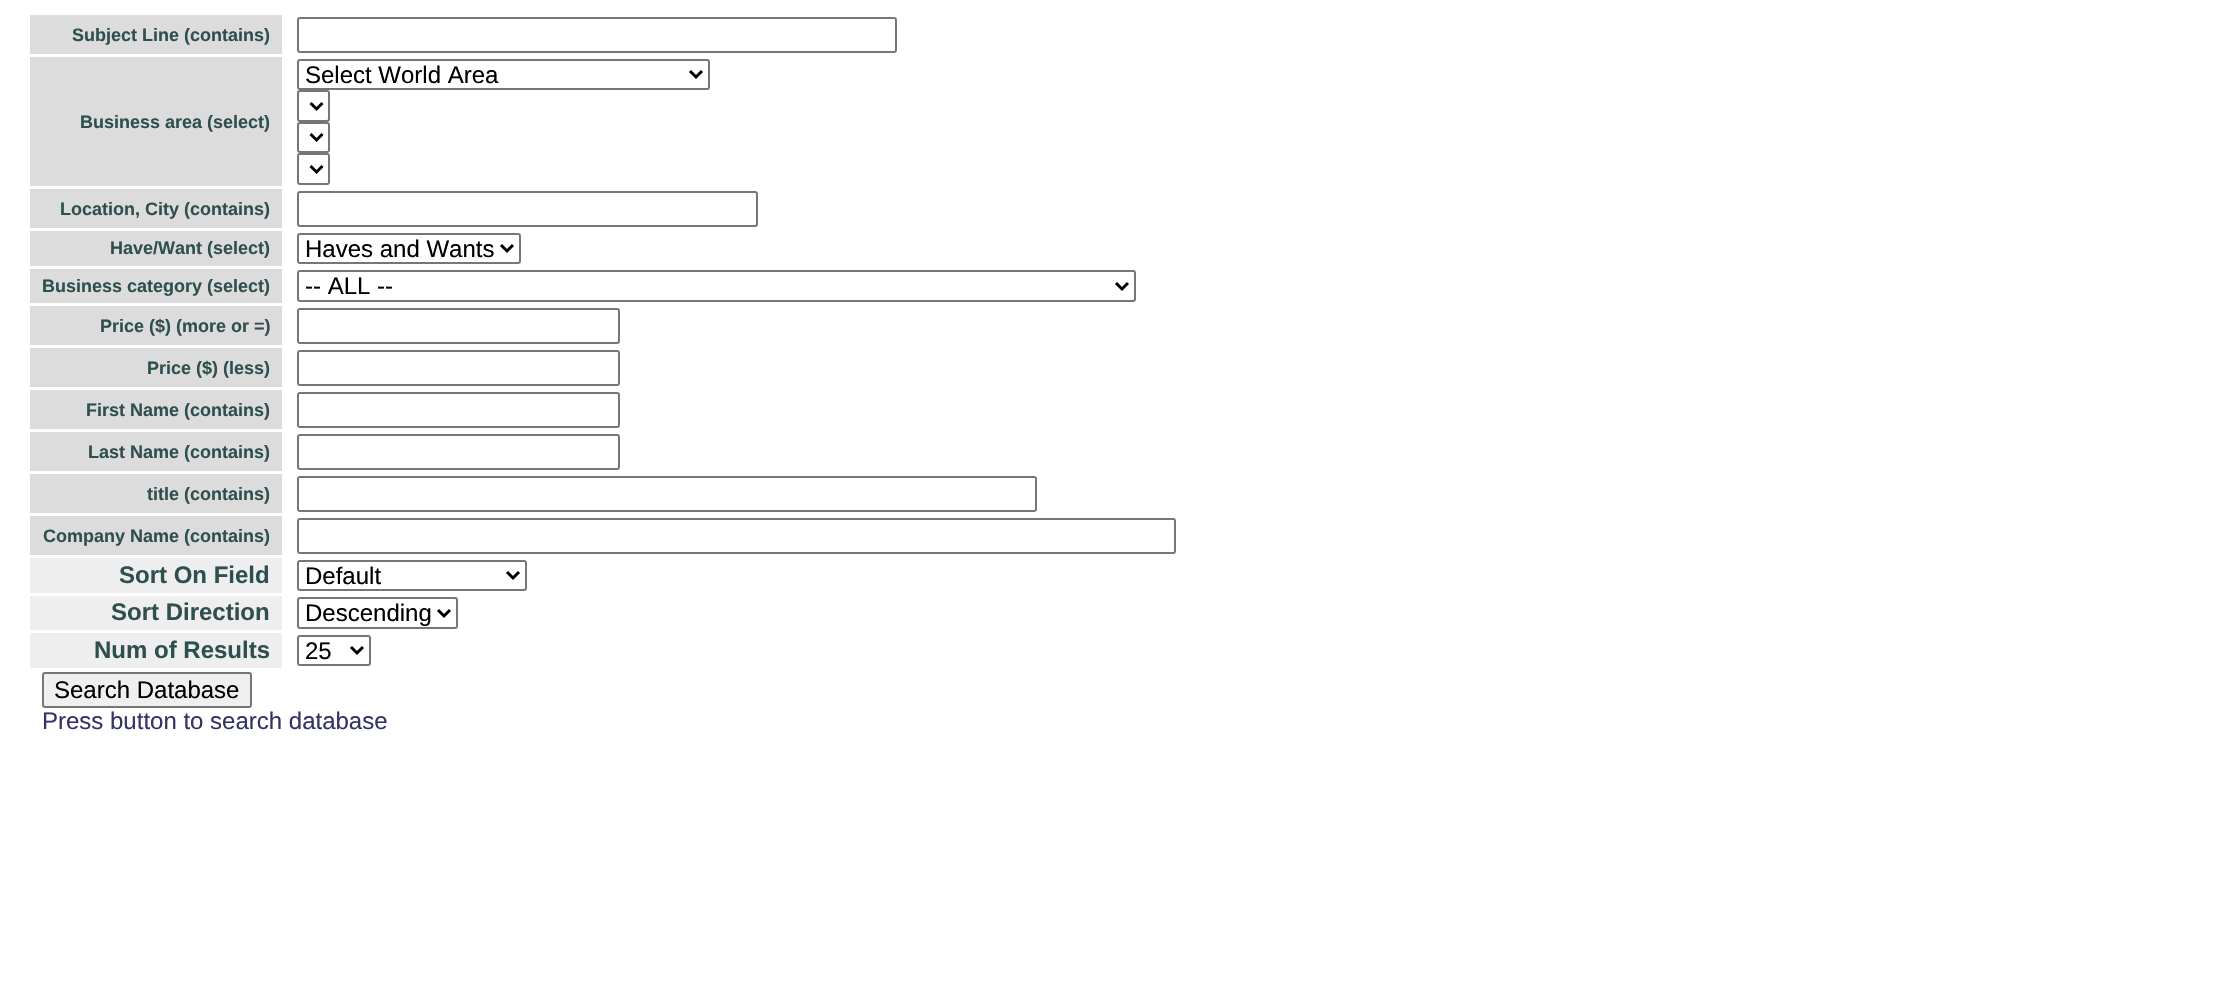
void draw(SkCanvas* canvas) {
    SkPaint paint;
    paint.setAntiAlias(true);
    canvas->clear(0xFFFFFFFF);
    paint.setColor(0xFFDCDCDC);
    canvas->drawRect(SkRect::MakeXYWH(30, 15, 252, 39), paint);
    SkFont font1(fontMgr->matchFamilyStyle("Liberation Sans", SkFontStyle::Bold()), 18);
    font1.setSubpixel(true);
    paint.setColor(0xFF2F4F4F);
    canvas->drawString("Subject Line (contains)", 72, 41, font1, paint);
    paint.setStyle(SkPaint::kStroke_Style);
    paint.setStrokeWidth(2);
    paint.setColor(0xFF767676);
    canvas->drawRoundRect(SkRect::MakeXYWH(298, 18, 598, 34), 2, 2, paint);
    canvas->drawRoundRect(SkRect::MakeXYWH(298, 60, 411, 29), 2, 2, paint);
    paint.setStrokeWidth(3);
    paint.setColor(0xFF000000);
    canvas->drawPath(SkPathBuilder().moveTo(690, 71).lineTo(696, 77).lineTo(702, 71).detach(), paint);
    SkFont font2(fontMgr->matchFamilyStyle("Liberation Sans", SkFontStyle::Normal()), 24);
    font2.setSubpixel(true);
    paint.setStyle(SkPaint::kFill_Style);
    canvas->drawString("Select World Area", 305, 83, font2, paint);
    paint.setStyle(SkPaint::kStroke_Style);
    paint.setStrokeWidth(2);
    paint.setColor(0xFF767676);
    canvas->drawRoundRect(SkRect::MakeXYWH(298, 91, 31, 30), 2, 2, paint);
    paint.setStrokeWidth(3);
    paint.setColor(0xFF000000);
    canvas->drawPath(SkPathBuilder().moveTo(310.5f, 103).lineTo(316.5f, 109).lineTo(322.5f, 103).detach(), paint);
    paint.setStrokeWidth(2);
    paint.setColor(0xFF767676);
    canvas->drawRoundRect(SkRect::MakeXYWH(298, 123, 31, 29), 2, 2, paint);
    paint.setStrokeWidth(3);
    paint.setColor(0xFF000000);
    canvas->drawPath(SkPathBuilder().moveTo(310.5f, 134).lineTo(316.5f, 140).lineTo(322.5f, 134).detach(), paint);
    paint.setStrokeWidth(2);
    paint.setColor(0xFF767676);
    canvas->drawRoundRect(SkRect::MakeXYWH(298, 154, 31, 30), 2, 2, paint);
    paint.setStrokeWidth(3);
    paint.setColor(0xFF000000);
    canvas->drawPath(SkPathBuilder().moveTo(310.5f, 166).lineTo(316.5f, 172).lineTo(322.5f, 166).detach(), paint);
    paint.setStyle(SkPaint::kFill_Style);
    paint.setColor(0xFFDCDCDC);
    canvas->drawRect(SkRect::MakeXYWH(30, 57, 252, 129), paint);
    paint.setColor(0xFF2F4F4F);
    canvas->drawString("Business area (select)", 80, 128, font1, paint);
    paint.setColor(0xFFDCDCDC);
    canvas->drawRect(SkRect::MakeXYWH(30, 189, 252, 39), paint);
    paint.setColor(0xFF2F4F4F);
    canvas->drawString("Location, City (contains)", 60, 215, font1, paint);
    paint.setStyle(SkPaint::kStroke_Style);
    paint.setStrokeWidth(2);
    paint.setColor(0xFF767676);
    canvas->drawRoundRect(SkRect::MakeXYWH(298, 192, 459, 34), 2, 2, paint);
    paint.setStyle(SkPaint::kFill_Style);
    paint.setColor(0xFFDCDCDC);
    canvas->drawRect(SkRect::MakeXYWH(30, 231, 252, 35), paint);
    paint.setColor(0xFF2F4F4F);
    canvas->drawString("Have/Want (select)", 110, 254, font1, paint);
    paint.setStyle(SkPaint::kStroke_Style);
    paint.setColor(0xFF767676);
    canvas->drawRoundRect(SkRect::MakeXYWH(298, 234, 222, 29), 2, 2, paint);
    paint.setStrokeWidth(3);
    paint.setColor(0xFF000000);
    canvas->drawPath(SkPathBuilder().moveTo(501, 245).lineTo(507, 251).lineTo(513, 245).detach(), paint);
    paint.setStyle(SkPaint::kFill_Style);
    canvas->drawString("Haves and Wants", 305, 257, font2, paint);
    paint.setColor(0xFFDCDCDC);
    canvas->drawRect(SkRect::MakeXYWH(30, 269, 252, 34), paint);
    paint.setColor(0xFF2F4F4F);
    canvas->drawString("Business category (select)", 42, 292, font1, paint);
    paint.setStyle(SkPaint::kStroke_Style);
    paint.setStrokeWidth(2);
    paint.setColor(0xFF767676);
    canvas->drawRoundRect(SkRect::MakeXYWH(298, 271, 837, 30), 2, 2, paint);
    paint.setStrokeWidth(3);
    paint.setColor(0xFF000000);
    canvas->drawPath(SkPathBuilder().moveTo(1116, 283).lineTo(1122, 289).lineTo(1128, 283).detach(), paint);
    paint.setStyle(SkPaint::kFill_Style);
    canvas->drawString("-- ALL --", 305, 294, font2, paint);
    paint.setColor(0xFFDCDCDC);
    canvas->drawRect(SkRect::MakeXYWH(30, 306, 252, 39), paint);
    paint.setColor(0xFF2F4F4F);
    canvas->drawString("Price ($) (more or =)", 100, 332, font1, paint);
    paint.setStyle(SkPaint::kStroke_Style);
    paint.setStrokeWidth(2);
    paint.setColor(0xFF767676);
    canvas->drawRoundRect(SkRect::MakeXYWH(298, 309, 321, 34), 2, 2, paint);
    paint.setStyle(SkPaint::kFill_Style);
    paint.setColor(0xFFDCDCDC);
    canvas->drawRect(SkRect::MakeXYWH(30, 348, 252, 39), paint);
    paint.setColor(0xFF2F4F4F);
    canvas->drawString("Price ($) (less)", 147, 374, font1, paint);
    paint.setStyle(SkPaint::kStroke_Style);
    paint.setColor(0xFF767676);
    canvas->drawRoundRect(SkRect::MakeXYWH(298, 351, 321, 34), 2, 2, paint);
    paint.setStyle(SkPaint::kFill_Style);
    paint.setColor(0xFFDCDCDC);
    canvas->drawRect(SkRect::MakeXYWH(30, 390, 252, 39), paint);
    paint.setColor(0xFF2F4F4F);
    canvas->drawString("First Name (contains)", 86, 416, font1, paint);
    paint.setStyle(SkPaint::kStroke_Style);
    paint.setColor(0xFF767676);
    canvas->drawRoundRect(SkRect::MakeXYWH(298, 393, 321, 34), 2, 2, paint);
    paint.setStyle(SkPaint::kFill_Style);
    paint.setColor(0xFFDCDCDC);
    canvas->drawRect(SkRect::MakeXYWH(30, 432, 252, 39), paint);
    paint.setColor(0xFF2F4F4F);
    canvas->drawString("Last Name (contains)", 88, 458, font1, paint);
    paint.setStyle(SkPaint::kStroke_Style);
    paint.setColor(0xFF767676);
    canvas->drawRoundRect(SkRect::MakeXYWH(298, 435, 321, 34), 2, 2, paint);
    paint.setStyle(SkPaint::kFill_Style);
    paint.setColor(0xFFDCDCDC);
    canvas->drawRect(SkRect::MakeXYWH(30, 474, 252, 39), paint);
    paint.setColor(0xFF2F4F4F);
    canvas->drawString("title (contains)", 147, 500, font1, paint);
    paint.setStyle(SkPaint::kStroke_Style);
    paint.setColor(0xFF767676);
    canvas->drawRoundRect(SkRect::MakeXYWH(298, 477, 738, 34), 2, 2, paint);
    paint.setStyle(SkPaint::kFill_Style);
    paint.setColor(0xFFDCDCDC);
    canvas->drawRect(SkRect::MakeXYWH(30, 516, 252, 39), paint);
    paint.setColor(0xFF2F4F4F);
    canvas->drawString("Company Name (contains)", 43, 542, font1, paint);
    paint.setStyle(SkPaint::kStroke_Style);
    paint.setColor(0xFF767676);
    canvas->drawRoundRect(SkRect::MakeXYWH(298, 519, 877, 34), 2, 2, paint);
    paint.setStyle(SkPaint::kFill_Style);
    paint.setColor(0xFFEEEEEE);
    canvas->drawRect(SkRect::MakeXYWH(30, 558, 252, 35), paint);
    SkFont font3(fontMgr->matchFamilyStyle("Liberation Sans", SkFontStyle::Bold()), 24);
    font3.setSubpixel(true);
    paint.setColor(0xFF2F4F4F);
    canvas->drawString("Sort On Field", 119, 583, font3, paint);
    paint.setStyle(SkPaint::kStroke_Style);
    paint.setColor(0xFF767676);
    canvas->drawRoundRect(SkRect::MakeXYWH(298, 561, 228, 29), 2, 2, paint);
    paint.setStrokeWidth(3);
    paint.setColor(0xFF000000);
    canvas->drawPath(SkPathBuilder().moveTo(507, 572).lineTo(513, 578).lineTo(519, 572).detach(), paint);
    paint.setStyle(SkPaint::kFill_Style);
    canvas->drawString("Default", 305, 584, font2, paint);
    paint.setColor(0xFFEEEEEE);
    canvas->drawRect(SkRect::MakeXYWH(30, 596, 252, 34), paint);
    paint.setColor(0xFF2F4F4F);
    canvas->drawString("Sort Direction", 111, 620, font3, paint);
    paint.setStyle(SkPaint::kStroke_Style);
    paint.setStrokeWidth(2);
    paint.setColor(0xFF767676);
    canvas->drawRoundRect(SkRect::MakeXYWH(298, 598, 159, 30), 2, 2, paint);
    paint.setStrokeWidth(3);
    paint.setColor(0xFF000000);
    canvas->drawPath(SkPathBuilder().moveTo(438, 610).lineTo(444, 616).lineTo(450, 610).detach(), paint);
    paint.setStyle(SkPaint::kFill_Style);
    canvas->drawString("Descending", 305, 621, font2, paint);
    paint.setColor(0xFFEEEEEE);
    canvas->drawRect(SkRect::MakeXYWH(30, 633, 252, 35), paint);
    paint.setColor(0xFF2F4F4F);
    canvas->drawString("Num of Results", 94, 658, font3, paint);
    paint.setStyle(SkPaint::kStroke_Style);
    paint.setStrokeWidth(2);
    paint.setColor(0xFF767676);
    canvas->drawRoundRect(SkRect::MakeXYWH(298, 636, 72, 29), 2, 2, paint);
    paint.setStrokeWidth(3);
    paint.setColor(0xFF000000);
    canvas->drawPath(SkPathBuilder().moveTo(351, 647).lineTo(357, 653).lineTo(363, 647).detach(), paint);
    paint.setStyle(SkPaint::kFill_Style);
    canvas->drawString("25", 305, 659, font2, paint);
    paint.setColor(0xFFEFEFEF);
    canvas->drawRoundRect(SkRect::MakeXYWH(43, 673, 208, 34), 2, 2, paint);
    paint.setStyle(SkPaint::kStroke_Style);
    paint.setStrokeWidth(2);
    paint.setColor(0xFF767676);
    canvas->drawRoundRect(SkRect::MakeXYWH(43, 673, 208, 34), 2, 2, paint);
    paint.setStyle(SkPaint::kFill_Style);
    paint.setColor(0xFF000000);
    canvas->drawString("Search Database", 54, 698, font2, paint);
    paint.setColor(0xFF333365);
    canvas->drawString("Press button to search database", 42, 729, font2, paint);
}
